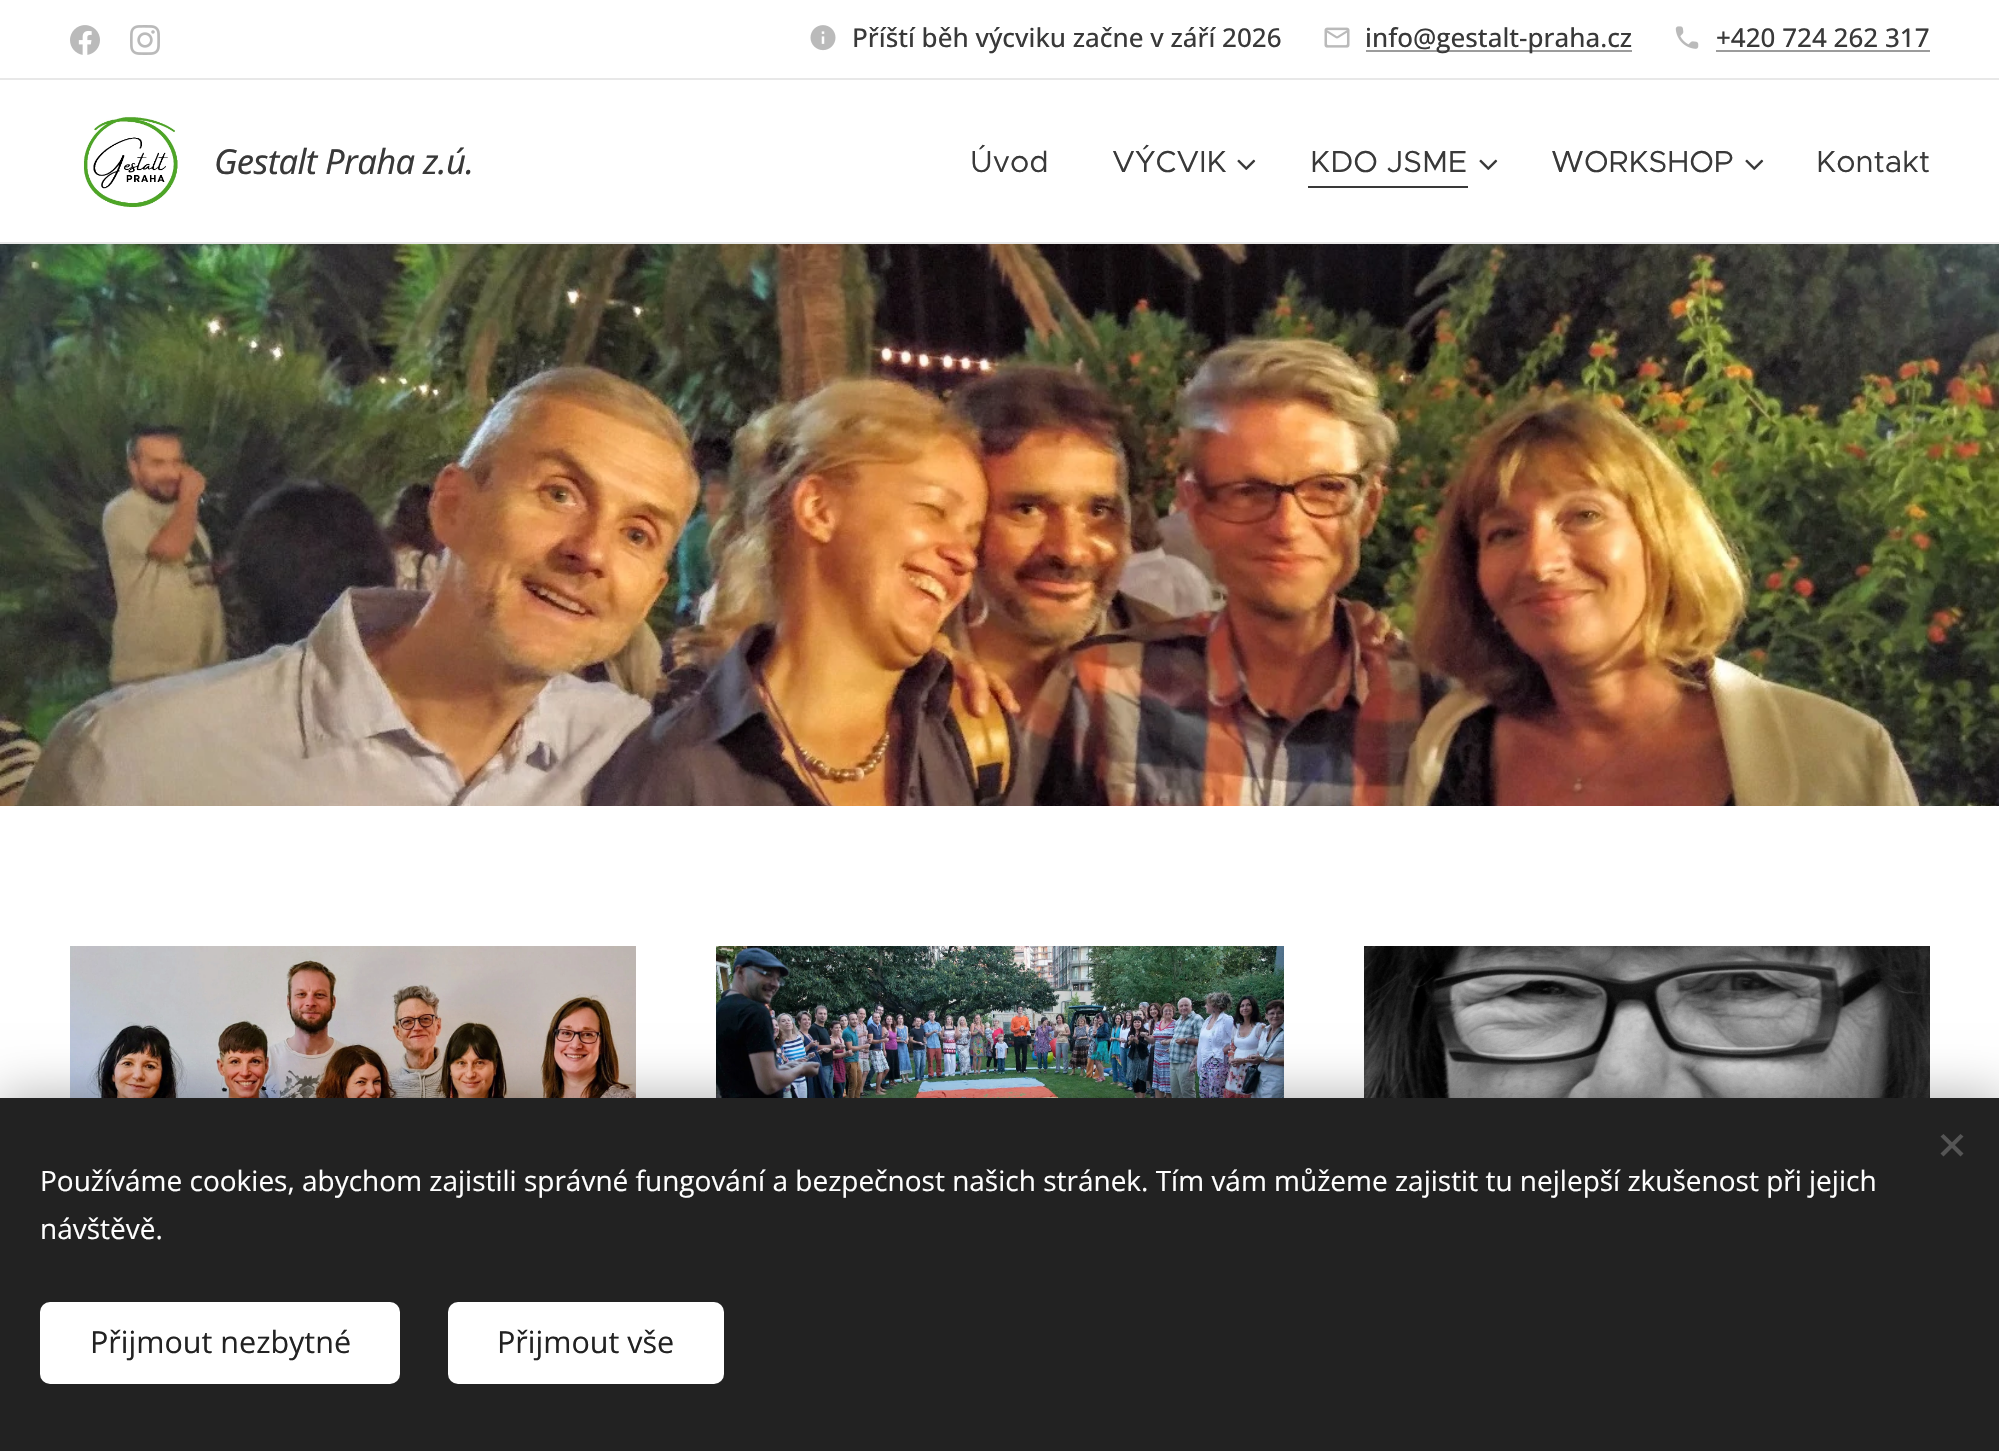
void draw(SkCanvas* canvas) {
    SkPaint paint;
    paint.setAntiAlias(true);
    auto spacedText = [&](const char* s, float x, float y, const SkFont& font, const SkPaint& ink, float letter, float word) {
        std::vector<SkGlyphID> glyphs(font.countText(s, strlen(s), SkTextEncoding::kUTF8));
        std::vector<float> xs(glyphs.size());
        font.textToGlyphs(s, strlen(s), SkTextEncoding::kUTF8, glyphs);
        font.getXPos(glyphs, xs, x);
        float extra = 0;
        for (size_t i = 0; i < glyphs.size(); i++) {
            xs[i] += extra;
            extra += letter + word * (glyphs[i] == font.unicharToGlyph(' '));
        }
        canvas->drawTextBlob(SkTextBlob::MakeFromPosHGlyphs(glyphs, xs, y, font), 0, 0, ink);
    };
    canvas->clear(0xFFFFFFFF);
    canvas->drawImageRect(SkImages::DeferredFromEncodedData(SkData::MakeFromFileName("img1.png")), SkRect::MakeXYWH(70, 25, 30, 30), SkSamplingOptions());
    canvas->drawImageRect(SkImages::DeferredFromEncodedData(SkData::MakeFromFileName("img2.png")), SkRect::MakeXYWH(130, 25, 30, 30), SkSamplingOptions());
    canvas->drawImageRect(SkImages::DeferredFromEncodedData(SkData::MakeFromFileName("img3.png")), SkRect::MakeXYWH(810, 25, 26, 26), SkSamplingOptions());
    SkFont font1(fontMgr->matchFamilyStyle("Open Sans", SkFontStyle(500, SkFontStyle::kNormal_Width, SkFontStyle::kUpright_Slant)), 26);
    font1.setSubpixel(true);
    paint.setColor(0xFF393939);
    canvas->drawString("Příští běh výcviku začne v září 2026", 852, 47, font1, paint);
    canvas->drawImageRect(SkImages::DeferredFromEncodedData(SkData::MakeFromFileName("img4.png")), SkRect::MakeXYWH(1324, 27, 26, 21), SkSamplingOptions());
    paint.setColor(0xFF9C9C9C);
    canvas->drawRect(SkRect::MakeXYWH(1366, 50, 266, 2), paint);
    paint.setColor(0xFF393939);
    canvas->drawString("info@gestalt-praha.cz", 1365, 47, font1, paint);
    canvas->drawImageRect(SkImages::DeferredFromEncodedData(SkData::MakeFromFileName("img5.png")), SkRect::MakeXYWH(1675, 26, 24, 23), SkSamplingOptions());
    canvas->drawString("+420 724 262 317", 1716, 47, font1, paint);
    paint.setColor(0xFF9C9C9C);
    canvas->drawRect(SkRect::MakeXYWH(1716, 50, 214, 2), paint);
    paint.setColor(0xFFE8E8E8);
    canvas->drawRect(SkRect::MakeXYWH(0, 78, 1999, 2), paint);
    canvas->drawImageRect(SkImages::DeferredFromEncodedData(SkData::MakeFromFileName("img6.png")), SkRect::MakeXYWH(83, 116, 95, 92), SkSamplingOptions());
    SkFont font2(fontMgr->matchFamilyStyle("Noto Sans", SkFontStyle::Italic()), 34.5f);
    font2.setSubpixel(true);
    paint.setColor(0xFF393939);
    spacedText("Gestalt Praha z.ú.", 214, 174, font2, paint, -0.6f, 0);
    SkFont font3(fontMgr->matchFamilyStyle("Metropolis", SkFontStyle::Normal()), 30.5f);
    font3.setSubpixel(true);
    canvas->drawString("Úvod", 970, 172, font3, paint);
    canvas->drawString("VÝCVIK", 1112, 172, font3, paint);
    canvas->drawImageRect(SkImages::DeferredFromEncodedData(SkData::MakeFromFileName("img7.png")), SkRect::MakeXYWH(1237, 159, 19, 11), SkSamplingOptions());
    canvas->drawString("KDO JSME", 1310, 172, font3, paint);
    canvas->drawRect(SkRect::MakeXYWH(1308, 186, 160, 2), paint);
    canvas->drawImageRect(SkImages::DeferredFromEncodedData(SkData::MakeFromFileName("img7.png")), SkRect::MakeXYWH(1479, 159, 19, 11), SkSamplingOptions());
    canvas->drawString("WORKSHOP", 1551, 172, font3, paint);
    canvas->drawImageRect(SkImages::DeferredFromEncodedData(SkData::MakeFromFileName("img7.png")), SkRect::MakeXYWH(1745, 159, 19, 11), SkSamplingOptions());
    canvas->drawString("Kontakt", 1816, 172, font3, paint);
    paint.setColor(0xFFE8E8E8);
    canvas->drawRect(SkRect::MakeXYWH(0, 242, 1999, 2), paint);
    canvas->drawImageRect(SkImages::DeferredFromEncodedData(SkData::MakeFromFileName("img8.png")), SkRect::MakeXYWH(0, 244, 1999, 562), SkSamplingOptions());
    canvas->drawImageRect(SkImages::DeferredFromEncodedData(SkData::MakeFromFileName("img9.png")), SkRect::MakeXYWH(70, 946, 566, 152), SkSamplingOptions());
    canvas->drawImageRect(SkImages::DeferredFromEncodedData(SkData::MakeFromFileName("img10.png")), SkRect::MakeXYWH(716, 946, 568, 152), SkSamplingOptions());
    canvas->drawImageRect(SkImages::DeferredFromEncodedData(SkData::MakeFromFileName("img11.png")), SkRect::MakeXYWH(1364, 946, 566, 152), SkSamplingOptions());
    paint.setColor(0x54000000);
    paint.setMaskFilter(SkMaskFilter::MakeBlur(kNormal_SkBlurStyle, 25));
    canvas->drawRect(SkRect::MakeXYWH(0, 1098, 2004, 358), paint);
    paint.setMaskFilter(nullptr);
    paint.setColor(0xFF222222);
    canvas->drawRect(SkRect::MakeXYWH(0, 1098, 1999, 353), paint);
    paint.setColor(0xFF555555);
    canvas->drawPath(SkPathBuilder().moveTo(1940.5f, 1153.5f).lineTo(1960.5f, 1134).lineTo(1963.5f, 1136.5f).lineTo(1943.5f, 1156.5f).close().detach(), paint);
    canvas->drawPath(SkPathBuilder().moveTo(1943.5f, 1134).lineTo(1963.5f, 1153.5f).lineTo(1960.5f, 1156.5f).lineTo(1940.5f, 1136.5f).close().detach(), paint);
    SkFont font4(fontMgr->matchFamilyStyle("Open Sans", SkFontStyle::Normal()), 28);
    font4.setSubpixel(true);
    paint.setColor(0xFFFFFFFF);
    canvas->drawString("Používáme cookies, abychom zajistili správné fungování a bezpečnost našich stránek. Tím vám můžeme zajistit tu nejlepší zkušenost při jejich", 40, 1191, font4, paint);
    canvas->drawString("návštěvě.", 40, 1239, font4, paint);
    canvas->drawRoundRect(SkRect::MakeXYWH(40, 1302, 360, 82), 10, 10, paint);
    SkFont font5(fontMgr->matchFamilyStyle("Open Sans", SkFontStyle::Normal()), 30.5f);
    font5.setSubpixel(true);
    paint.setColor(0xFF222222);
    canvas->drawString("Přijmout nezbytné", 90, 1353, font5, paint);
    paint.setColor(0xFFFFFFFF);
    canvas->drawRoundRect(SkRect::MakeXYWH(448, 1302, 276, 82), 10, 10, paint);
    paint.setColor(0xFF222222);
    canvas->drawString("Přijmout vše", 497, 1353, font5, paint);
}
